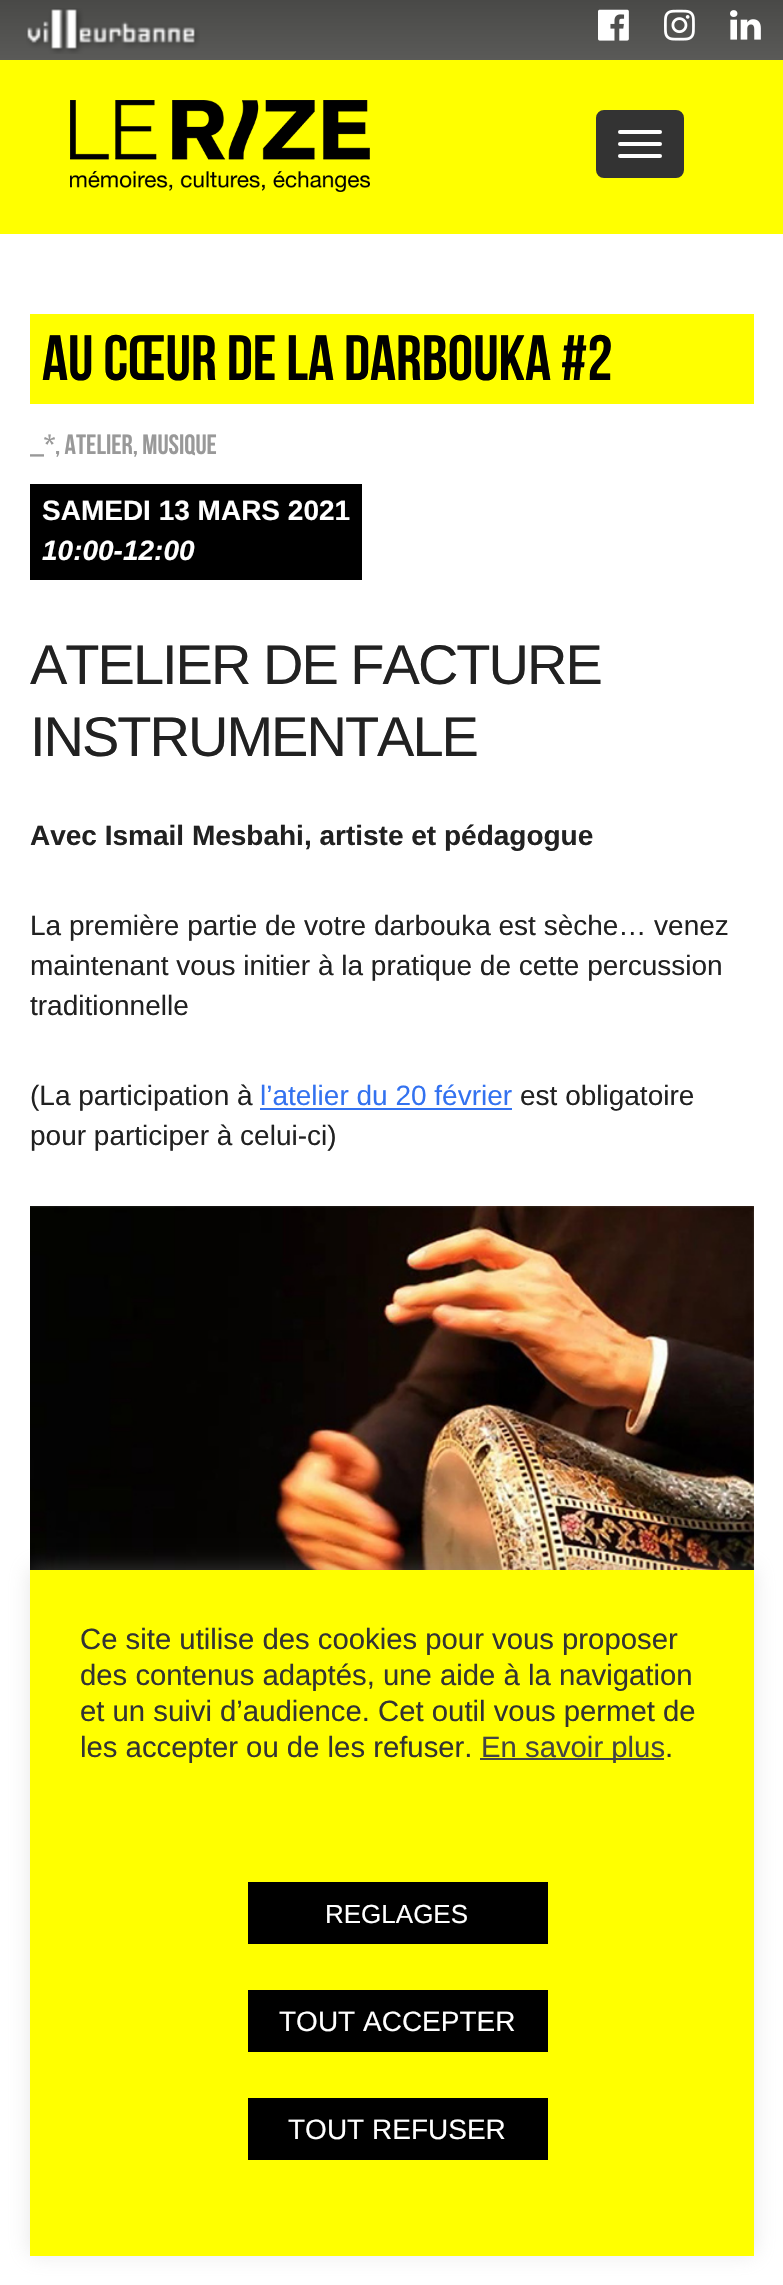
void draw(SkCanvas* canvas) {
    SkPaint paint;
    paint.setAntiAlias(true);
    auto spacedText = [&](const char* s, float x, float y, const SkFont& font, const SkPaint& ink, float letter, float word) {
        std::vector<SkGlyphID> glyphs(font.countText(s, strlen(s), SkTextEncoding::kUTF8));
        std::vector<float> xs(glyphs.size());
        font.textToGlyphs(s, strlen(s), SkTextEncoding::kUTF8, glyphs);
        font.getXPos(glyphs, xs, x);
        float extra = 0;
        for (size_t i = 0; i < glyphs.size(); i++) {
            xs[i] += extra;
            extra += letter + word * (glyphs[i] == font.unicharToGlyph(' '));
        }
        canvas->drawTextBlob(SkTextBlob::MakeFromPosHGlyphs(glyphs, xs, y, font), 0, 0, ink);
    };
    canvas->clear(0xFFFFFFFF);
    paint.setColor(0xFFFFFF00);
    canvas->drawRect(SkRect::MakeXYWH(0, 60, 783, 174), paint);
    {
        const SkColor colors[] = {0xFF494947, 0xFF5A5A58};
        const float stops[] = {0, 1};
        const SkPoint ends[] = {{392, 0}, {392, 60}};
        paint.setShader(SkGradientShader::MakeLinear(ends, colors, stops, 2, SkTileMode::kClamp));
        paint.setAlpha(255);
    }
    canvas->drawRect(SkRect::MakeXYWH(0, 0, 783, 60), paint);
    canvas->drawImageRect(SkImages::DeferredFromEncodedData(SkData::MakeFromFileName("img1.png")), SkRect::MakeXYWH(26, 8, 174, 46), SkSamplingOptions());
    canvas->drawImageRect(SkImages::DeferredFromEncodedData(SkData::MakeFromFileName("img2.png")), SkRect::MakeXYWH(598, 9, 31, 32), SkSamplingOptions());
    canvas->drawImageRect(SkImages::DeferredFromEncodedData(SkData::MakeFromFileName("img3.png")), SkRect::MakeXYWH(664, 9, 31, 32), SkSamplingOptions());
    canvas->drawImageRect(SkImages::DeferredFromEncodedData(SkData::MakeFromFileName("img4.png")), SkRect::MakeXYWH(730, 10, 31, 30), SkSamplingOptions());
    canvas->drawImageRect(SkImages::DeferredFromEncodedData(SkData::MakeFromFileName("img5.png")), SkRect::MakeXYWH(70, 100, 300, 92), SkSamplingOptions());
    paint.setShader(nullptr);
    paint.setColor(0xFF333333);
    canvas->drawRoundRect(SkRect::MakeXYWH(597, 111, 86, 66), 7, 7, paint);
    paint.setStyle(SkPaint::kStroke_Style);
    paint.setStrokeWidth(2);
    canvas->drawRoundRect(SkRect::MakeXYWH(597, 111, 86, 66), 7, 7, paint);
    paint.setStyle(SkPaint::kFill_Style);
    paint.setColor(0xFFFFFFFF);
    canvas->drawRoundRect(SkRect::MakeXYWH(618, 130, 44, 4), 2, 2, paint);
    canvas->drawRoundRect(SkRect::MakeXYWH(618, 142, 44, 4), 2, 2, paint);
    canvas->drawRoundRect(SkRect::MakeXYWH(618, 154, 44, 4), 2, 2, paint);
    paint.setColor(0xFFFFFF00);
    canvas->drawRect(SkRect::MakeXYWH(30, 314, 724, 90), paint);
    SkFont font1(fontMgr->matchFamilyStyle("Bebas Neue", SkFontStyle::Normal()), 64);
    font1.setSubpixel(true);
    paint.setColor(0xFF000000);
    canvas->drawString("Au cœur de la darbouka #2", 42, 380, font1, paint);
    SkFont font2(fontMgr->matchFamilyStyle("Bebas Neue", SkFontStyle::Normal()), 28);
    font2.setSubpixel(true);
    paint.setColor(0xFF999999);
    canvas->drawString("_*, Atelier, Musique", 30, 454, font2, paint);
    paint.setColor(0xFF000000);
    canvas->drawRect(SkRect::MakeXYWH(30, 484, 332, 96), paint);
    SkFont font3(fontMgr->matchFamilyStyle("Liberation Sans", SkFontStyle::Bold()), 28);
    font3.setSubpixel(true);
    paint.setColor(0xFFFFFFFF);
    canvas->drawString("SAMEDI 13 MARS 2021", 42, 520, font3, paint);
    SkFont font4(fontMgr->matchFamilyStyle("Liberation Sans", SkFontStyle::BoldItalic()), 28);
    font4.setSubpixel(true);
    canvas->drawString("10:00-12:00", 42, 560, font4, paint);
    SkFont font5(fontMgr->matchFamilyStyle("Liberation Sans", SkFontStyle::Normal()), 56);
    font5.setSubpixel(true);
    paint.setColor(0xFF212121);
    spacedText("ATELIER DE FACTURE", 30, 684, font5, paint, -2, 0);
    spacedText("INSTRUMENTALE", 30, 756, font5, paint, -2, 0);
    canvas->drawString("Avec Ismail Mesbahi, artiste et pédagogue", 30, 845, font3, paint);
    SkFont font6(fontMgr->matchFamilyStyle("Liberation Sans", SkFontStyle::Normal()), 28);
    font6.setSubpixel(true);
    canvas->drawString("La première partie de votre darbouka est sèche… venez", 30, 935, font6, paint);
    canvas->drawString("maintenant vous initier à la pratique de cette percussion", 30, 975, font6, paint);
    canvas->drawString("traditionnelle", 30, 1015, font6, paint);
    canvas->drawString("(La participation à", 30, 1105, font6, paint);
    paint.setColor(0xFF3372F0);
    canvas->drawString("l’atelier du 20 février", 260, 1105, font6, paint);
    canvas->drawRect(SkRect::MakeXYWH(260, 1108, 252, 2), paint);
    paint.setColor(0xFF212121);
    canvas->drawString("est obligatoire", 520, 1105, font6, paint);
    canvas->drawString("pour participer à celui-ci)", 30, 1145, font6, paint);
    canvas->drawImageRect(SkImages::DeferredFromEncodedData(SkData::MakeFromFileName("img6.png")), SkRect::MakeXYWH(30, 1206, 724, 364), SkSamplingOptions());
    paint.setColor(0x4DACABAB);
    paint.setMaskFilter(SkMaskFilter::MakeBlur(kNormal_SkBlurStyle, 10));
    canvas->drawRect(SkRect::MakeXYWH(30, 1568, 724, 686), paint);
    paint.setMaskFilter(nullptr);
    paint.setColor(0xFFFFFF00);
    canvas->drawRect(SkRect::MakeXYWH(30, 1570, 724, 686), paint);
    SkFont font7(fontMgr->matchFamilyStyle("Liberation Sans", SkFontStyle::Normal()), 29.3f);
    font7.setSubpixel(true);
    paint.setColor(0xFF333333);
    canvas->drawString("Ce site utilise des cookies pour vous proposer", 80, 1649, font7, paint);
    canvas->drawString("des contenus adaptés, une aide à la navigation", 80, 1685, font7, paint);
    canvas->drawString("et un suivi d’audience. Cet outil vous permet de", 80, 1721, font7, paint);
    canvas->drawString("les accepter ou de les refuser.", 80, 1757, font7, paint);
    paint.setColor(0xFF444444);
    canvas->drawRect(SkRect::MakeXYWH(480, 1758, 184, 2), paint);
    canvas->drawString("En savoir plus", 481, 1757, font7, paint);
    paint.setColor(0xFF333333);
    canvas->drawString(".", 665, 1757, font7, paint);
    paint.setColor(0xFF000000);
    canvas->drawRect(SkRect::MakeXYWH(248, 1882, 300, 62), paint);
    SkFont font8(fontMgr->matchFamilyStyle("Liberation Sans", SkFontStyle::Normal()), 26);
    font8.setSubpixel(true);
    paint.setColor(0xFFFFFFFF);
    canvas->drawString("REGLAGES", 325, 1923, font8, paint);
    paint.setColor(0xFF000000);
    canvas->drawRect(SkRect::MakeXYWH(248, 1990, 300, 62), paint);
    paint.setColor(0xFFFFFFFF);
    canvas->drawString("TOUT ACCEPTER", 279, 2031, font6, paint);
    paint.setColor(0xFF000000);
    canvas->drawRect(SkRect::MakeXYWH(248, 2098, 300, 62), paint);
    paint.setColor(0xFFFFFFFF);
    canvas->drawString("TOUT REFUSER", 288, 2139, font6, paint);
}
